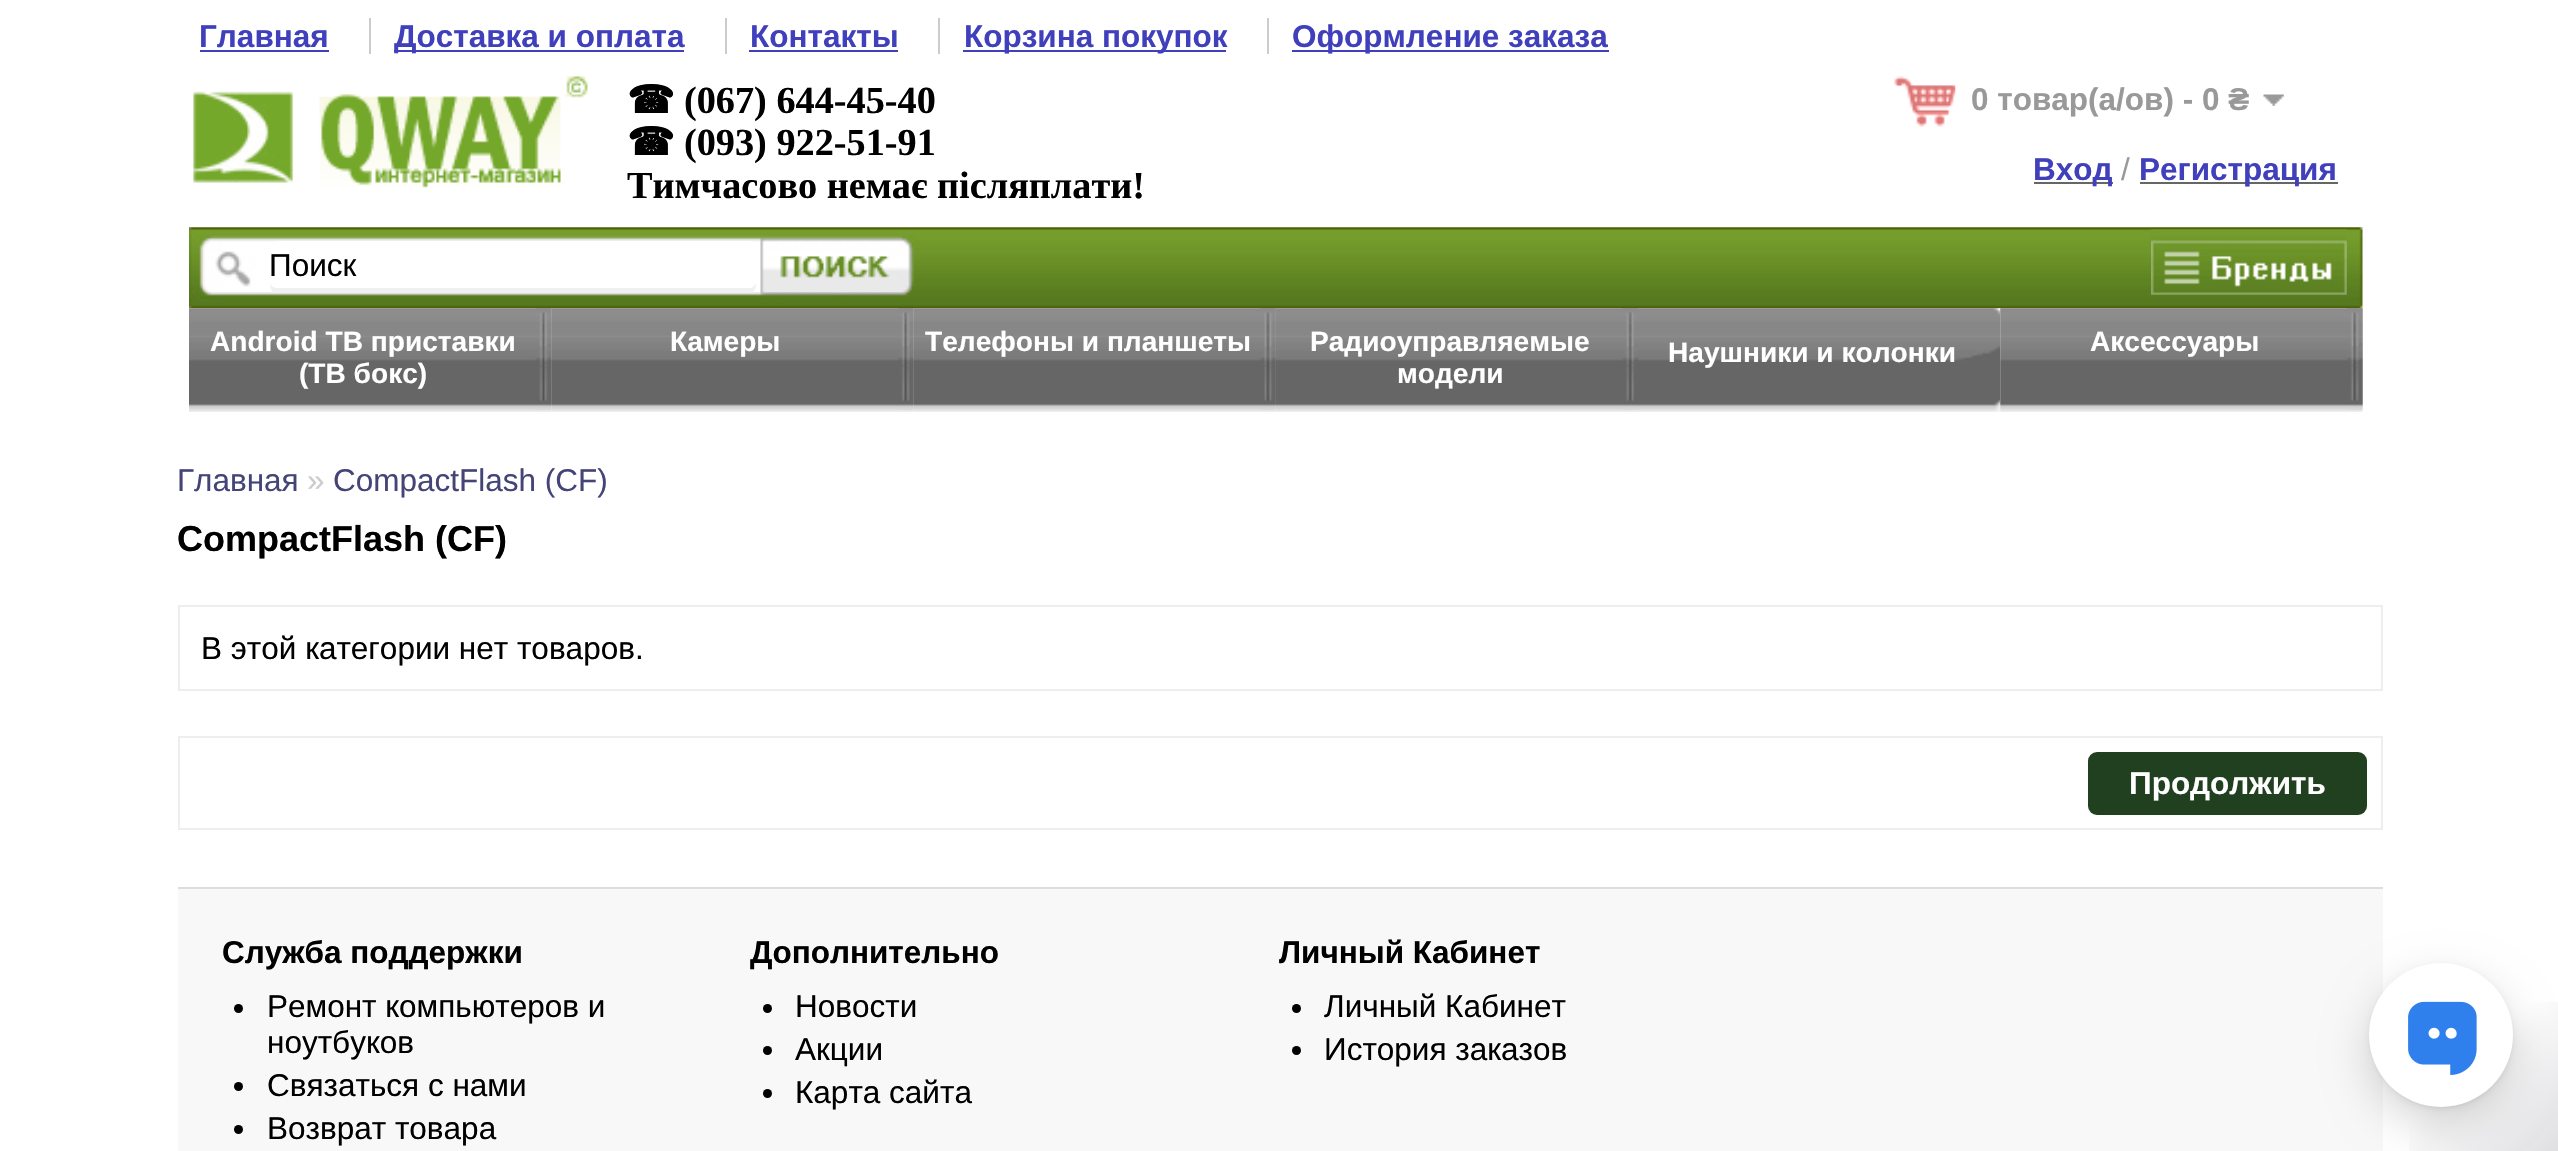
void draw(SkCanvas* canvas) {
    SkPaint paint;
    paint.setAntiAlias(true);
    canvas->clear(0xFFFFFFFF);
    SkFont font1(fontMgr->matchFamilyStyle("Liberation Sans", SkFontStyle::Bold()), 31.5f);
    font1.setSubpixel(true);
    paint.setColor(0xFF4040BD);
    canvas->drawString("Главная", 199, 47, font1, paint);
    canvas->drawRect(SkRect::MakeXYWH(200, 50, 129, 2), paint);
    paint.setColor(0xFFCCCCCC);
    canvas->drawRect(SkRect::MakeXYWH(369, 18, 2, 36), paint);
    paint.setColor(0xFF4040BD);
    canvas->drawRect(SkRect::MakeXYWH(394, 50, 290, 2), paint);
    canvas->drawString("Доставка и оплата", 394, 47, font1, paint);
    paint.setColor(0xFFCCCCCC);
    canvas->drawRect(SkRect::MakeXYWH(725, 18, 2, 36), paint);
    paint.setColor(0xFF4040BD);
    canvas->drawString("Контакты", 750, 47, font1, paint);
    canvas->drawRect(SkRect::MakeXYWH(749, 50, 149, 2), paint);
    paint.setColor(0xFFCCCCCC);
    canvas->drawRect(SkRect::MakeXYWH(938, 18, 2, 36), paint);
    paint.setColor(0xFF4040BD);
    canvas->drawRect(SkRect::MakeXYWH(963, 50, 263, 2), paint);
    canvas->drawString("Корзина покупок", 964, 47, font1, paint);
    paint.setColor(0xFFCCCCCC);
    canvas->drawRect(SkRect::MakeXYWH(1267, 18, 2, 36), paint);
    paint.setColor(0xFF4040BD);
    canvas->drawRect(SkRect::MakeXYWH(1292, 50, 317, 2), paint);
    canvas->drawString("Оформление заказа", 1292, 47, font1, paint);
    canvas->drawImageRect(SkImages::DeferredFromEncodedData(SkData::MakeFromFileName("img1.png")), SkRect::MakeXYWH(193, 76, 395, 112), SkSamplingOptions());
    SkFont font2(fontMgr->matchFamilyStyle("DejaVu Sans", SkFontStyle::Bold()), 38.25f);
    font2.setSubpixel(true);
    paint.setColor(0xFF000000);
    canvas->drawString("☎", 627, 113, font2, paint);
    SkFont font3(fontMgr->matchFamilyStyle("Liberation Serif", SkFontStyle::Bold()), 38.25f);
    font3.setSubpixel(true);
    canvas->drawString("(067) 644-45-40", 684, 113, font3, paint);
    canvas->drawString("☎", 627, 155, font2, paint);
    canvas->drawString("(093) 922-51-91", 684, 155, font3, paint);
    canvas->drawString("Тимчасово немає післяплати!", 627, 198, font3, paint);
    canvas->drawImageRect(SkImages::DeferredFromEncodedData(SkData::MakeFromFileName("img2.png")), SkRect::MakeXYWH(1894, 76, 62, 51), SkSamplingOptions());
    paint.setColor(0xFF999999);
    canvas->drawString("0 товар(а/ов) - 0 ₴", 1971, 110, font1, paint);
    canvas->drawImageRect(SkImages::DeferredFromEncodedData(SkData::MakeFromFileName("img3.png")), SkRect::MakeXYWH(2263, 94, 21, 12), SkSamplingOptions());
    paint.setColor(0xFF666666);
    canvas->drawRect(SkRect::MakeXYWH(2034, 182, 79, 2), paint);
    paint.setColor(0xFF4040BD);
    canvas->drawString("Вход", 2033, 180, font1, paint);
    SkFont font4(fontMgr->matchFamilyStyle("Liberation Sans", SkFontStyle::Normal()), 31.5f);
    font4.setSubpixel(true);
    paint.setColor(0xFF999999);
    canvas->drawString("/", 2121, 180, font4, paint);
    paint.setColor(0xFF666666);
    canvas->drawRect(SkRect::MakeXYWH(2140, 182, 198, 2), paint);
    paint.setColor(0xFF4040BD);
    canvas->drawString("Регистрация", 2139, 180, font1, paint);
    canvas->drawImageRect(SkImages::DeferredFromEncodedData(SkData::MakeFromFileName("img4.png")), SkRect::MakeXYWH(189, 227, 2174, 82), SkSamplingOptions());
    paint.setColor(0xFFF0F0F0);
    canvas->drawPath(SkPathBuilder().moveTo(270, 281).cubicTo(270, 286, 270, 292, 276, 293).lineTo(749, 293).cubicTo(756, 293, 756, 286, 756, 281).cubicTo(756, 285, 753, 288, 749, 288).lineTo(277, 288).cubicTo(273, 288, 270, 285, 270, 281).close().detach(), paint);
    paint.setColor(0xFFFFFFFF);
    canvas->drawRoundRect(SkRect::MakeXYWH(270, 241, 486, 47), 7, 7, paint);
    paint.setColor(0xFF000000);
    canvas->drawString("Поиск", 269, 276, font4, paint);
    canvas->drawImageRect(SkImages::DeferredFromEncodedData(SkData::MakeFromFileName("img5.png")), SkRect::MakeXYWH(2151, 229, 196, 66), SkSamplingOptions());
    canvas->drawImageRect(SkImages::DeferredFromEncodedData(SkData::MakeFromFileName("img6.png")), SkRect::MakeXYWH(189, 308, 363, 104), SkSamplingOptions());
    SkFont font5(fontMgr->matchFamilyStyle("Liberation Sans", SkFontStyle::Bold()), 28.1f);
    font5.setSubpixel(true);
    paint.setColor(0xFFFFFFFF);
    canvas->drawString("Android ТВ приставки", 210, 351, font5, paint);
    canvas->drawImageRect(SkImages::DeferredFromEncodedData(SkData::MakeFromFileName("img7.png")), SkRect::MakeXYWH(535, 308, 17, 102), SkSamplingOptions());
    canvas->drawString("(ТВ бокс)", 299, 383, font5, paint);
    canvas->drawImageRect(SkImages::DeferredFromEncodedData(SkData::MakeFromFileName("img8.png")), SkRect::MakeXYWH(551, 308, 363, 104), SkSamplingOptions());
    canvas->drawString("Камеры", 670, 351, font5, paint);
    canvas->drawImageRect(SkImages::DeferredFromEncodedData(SkData::MakeFromFileName("img9.png")), SkRect::MakeXYWH(898, 308, 16, 102), SkSamplingOptions());
    canvas->drawImageRect(SkImages::DeferredFromEncodedData(SkData::MakeFromFileName("img10.png")), SkRect::MakeXYWH(913, 308, 363, 104), SkSamplingOptions());
    canvas->drawString("Телефоны и планшеты", 925, 351, font5, paint);
    canvas->drawImageRect(SkImages::DeferredFromEncodedData(SkData::MakeFromFileName("img11.png")), SkRect::MakeXYWH(1260, 308, 16, 102), SkSamplingOptions());
    canvas->drawImageRect(SkImages::DeferredFromEncodedData(SkData::MakeFromFileName("img12.png")), SkRect::MakeXYWH(1276, 308, 362, 104), SkSamplingOptions());
    canvas->drawString("Радиоуправляемые", 1310, 351, font5, paint);
    canvas->drawImageRect(SkImages::DeferredFromEncodedData(SkData::MakeFromFileName("img13.png")), SkRect::MakeXYWH(1622, 308, 16, 102), SkSamplingOptions());
    canvas->drawString("модели", 1397, 383, font5, paint);
    canvas->drawImageRect(SkImages::DeferredFromEncodedData(SkData::MakeFromFileName("img14.png")), SkRect::MakeXYWH(1638, 308, 363, 104), SkSamplingOptions());
    canvas->drawString("Наушники и колонки", 1668, 362, font5, paint);
    canvas->drawImageRect(SkImages::DeferredFromEncodedData(SkData::MakeFromFileName("img15.png")), SkRect::MakeXYWH(2000, 308, 363, 104), SkSamplingOptions());
    canvas->drawString("Аксессуары", 2090, 351, font5, paint);
    canvas->drawImageRect(SkImages::DeferredFromEncodedData(SkData::MakeFromFileName("img16.png")), SkRect::MakeXYWH(2347, 308, 16, 102), SkSamplingOptions());
    paint.setColor(0xFF444477);
    canvas->drawString("Главная", 177, 491, font4, paint);
    paint.setColor(0xFFCCCCCC);
    canvas->drawString("»", 307, 491, font4, paint);
    paint.setColor(0xFF444477);
    canvas->drawString("CompactFlash (CF)", 333, 491, font4, paint);
    SkFont font6(fontMgr->matchFamilyStyle("Liberation Sans", SkFontStyle::Bold()), 36);
    font6.setSubpixel(true);
    paint.setColor(0xFF000000);
    canvas->drawString("CompactFlash (CF)", 177, 551, font6, paint);
    paint.setStyle(SkPaint::kStroke_Style);
    paint.setStrokeWidth(2);
    paint.setColor(0xFFEEEEEE);
    canvas->drawRect(SkRect::MakeXYWH(179, 606, 2203, 84), paint);
    paint.setStyle(SkPaint::kFill_Style);
    paint.setColor(0xFF000000);
    canvas->drawString("В этой категории нет товаров.", 201, 659, font4, paint);
    paint.setStyle(SkPaint::kStroke_Style);
    paint.setColor(0xFFEEEEEE);
    canvas->drawRect(SkRect::MakeXYWH(179, 737, 2203, 92), paint);
    paint.setStyle(SkPaint::kFill_Style);
    paint.setColor(0xFF204020);
    canvas->drawRoundRect(SkRect::MakeXYWH(2088, 752, 279, 63), 9, 9, paint);
    paint.setColor(0xFFFFFFFF);
    canvas->drawString("Продолжить", 2129, 794, font1, paint);
    paint.setColor(0xFFF8F8F8);
    canvas->drawRect(SkRect::MakeXYWH(178, 889, 2205, 262), paint);
    paint.setColor(0xFFDBDEE1);
    canvas->drawRect(SkRect::MakeXYWH(178, 887, 2205, 2), paint);
    paint.setColor(0xFF000000);
    canvas->drawString("Служба поддержки", 222, 963, font1, paint);
    canvas->drawCircle(238.5f, 1008.5f, 4.5f, paint);
    canvas->drawString("Ремонт компьютеров и", 267, 1017, font4, paint);
    canvas->drawString("ноутбуков", 267, 1053, font4, paint);
    canvas->drawCircle(238.5f, 1086.5f, 4.5f, paint);
    canvas->drawString("Связаться с нами", 267, 1096, font4, paint);
    canvas->drawCircle(238.5f, 1129.5f, 4.5f, paint);
    canvas->drawString("Возврат товара", 267, 1139, font4, paint);
    canvas->drawString("Дополнительно", 750, 963, font1, paint);
    canvas->drawCircle(767.5f, 1008.5f, 4.5f, paint);
    canvas->drawString("Новости", 795, 1017, font4, paint);
    canvas->drawCircle(767.5f, 1050.5f, 4.5f, paint);
    canvas->drawString("Акции", 795, 1060, font4, paint);
    canvas->drawCircle(767.5f, 1093.5f, 4.5f, paint);
    canvas->drawString("Карта сайта", 795, 1103, font4, paint);
    canvas->drawString("Личный Кабинет", 1279, 963, font1, paint);
    canvas->drawCircle(1296.5f, 1008.5f, 4.5f, paint);
    canvas->drawString("Личный Кабинет", 1324, 1017, font4, paint);
    canvas->drawCircle(1296.5f, 1050.5f, 4.5f, paint);
    canvas->drawString("История заказов", 1324, 1060, font4, paint);
    {
        const SkColor colors[] = {0x000E0E29, 0x330E0E29};
        const float stops[] = {0.5f, 1};
        const SkPoint ends[] = {{2333, 927}, {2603, 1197}};
        paint.setShader(SkGradientShader::MakeLinear(ends, colors, stops, 2, SkTileMode::kClamp));
        paint.setAlpha(255);
    }
    canvas->drawRect(SkRect::MakeXYWH(2409, 1002, 149, 149), paint);
    paint.setShader(nullptr);
    paint.setColor(0x29000000);
    paint.setMaskFilter(SkMaskFilter::MakeBlur(kNormal_SkBlurStyle, 22.5f));
    canvas->drawRoundRect(SkRect::MakeXYWH(2369, 981, 144, 144), 72, 72, paint);
    paint.setMaskFilter(nullptr);
    paint.setColor(0x52000000);
    paint.setMaskFilter(SkMaskFilter::MakeBlur(kNormal_SkBlurStyle, 5.5f));
    canvas->drawRoundRect(SkRect::MakeXYWH(2376, 972, 131, 131), 65.5f, 65.5f, paint);
    paint.setMaskFilter(nullptr);
    paint.setColor(0xFFFFFFFF);
    canvas->drawCircle(2441, 1035, 72, paint);
    canvas->drawImageRect(SkImages::DeferredFromEncodedData(SkData::MakeFromFileName("img17.png")), SkRect::MakeXYWH(2408, 1001, 69, 74), SkSamplingOptions());
}
